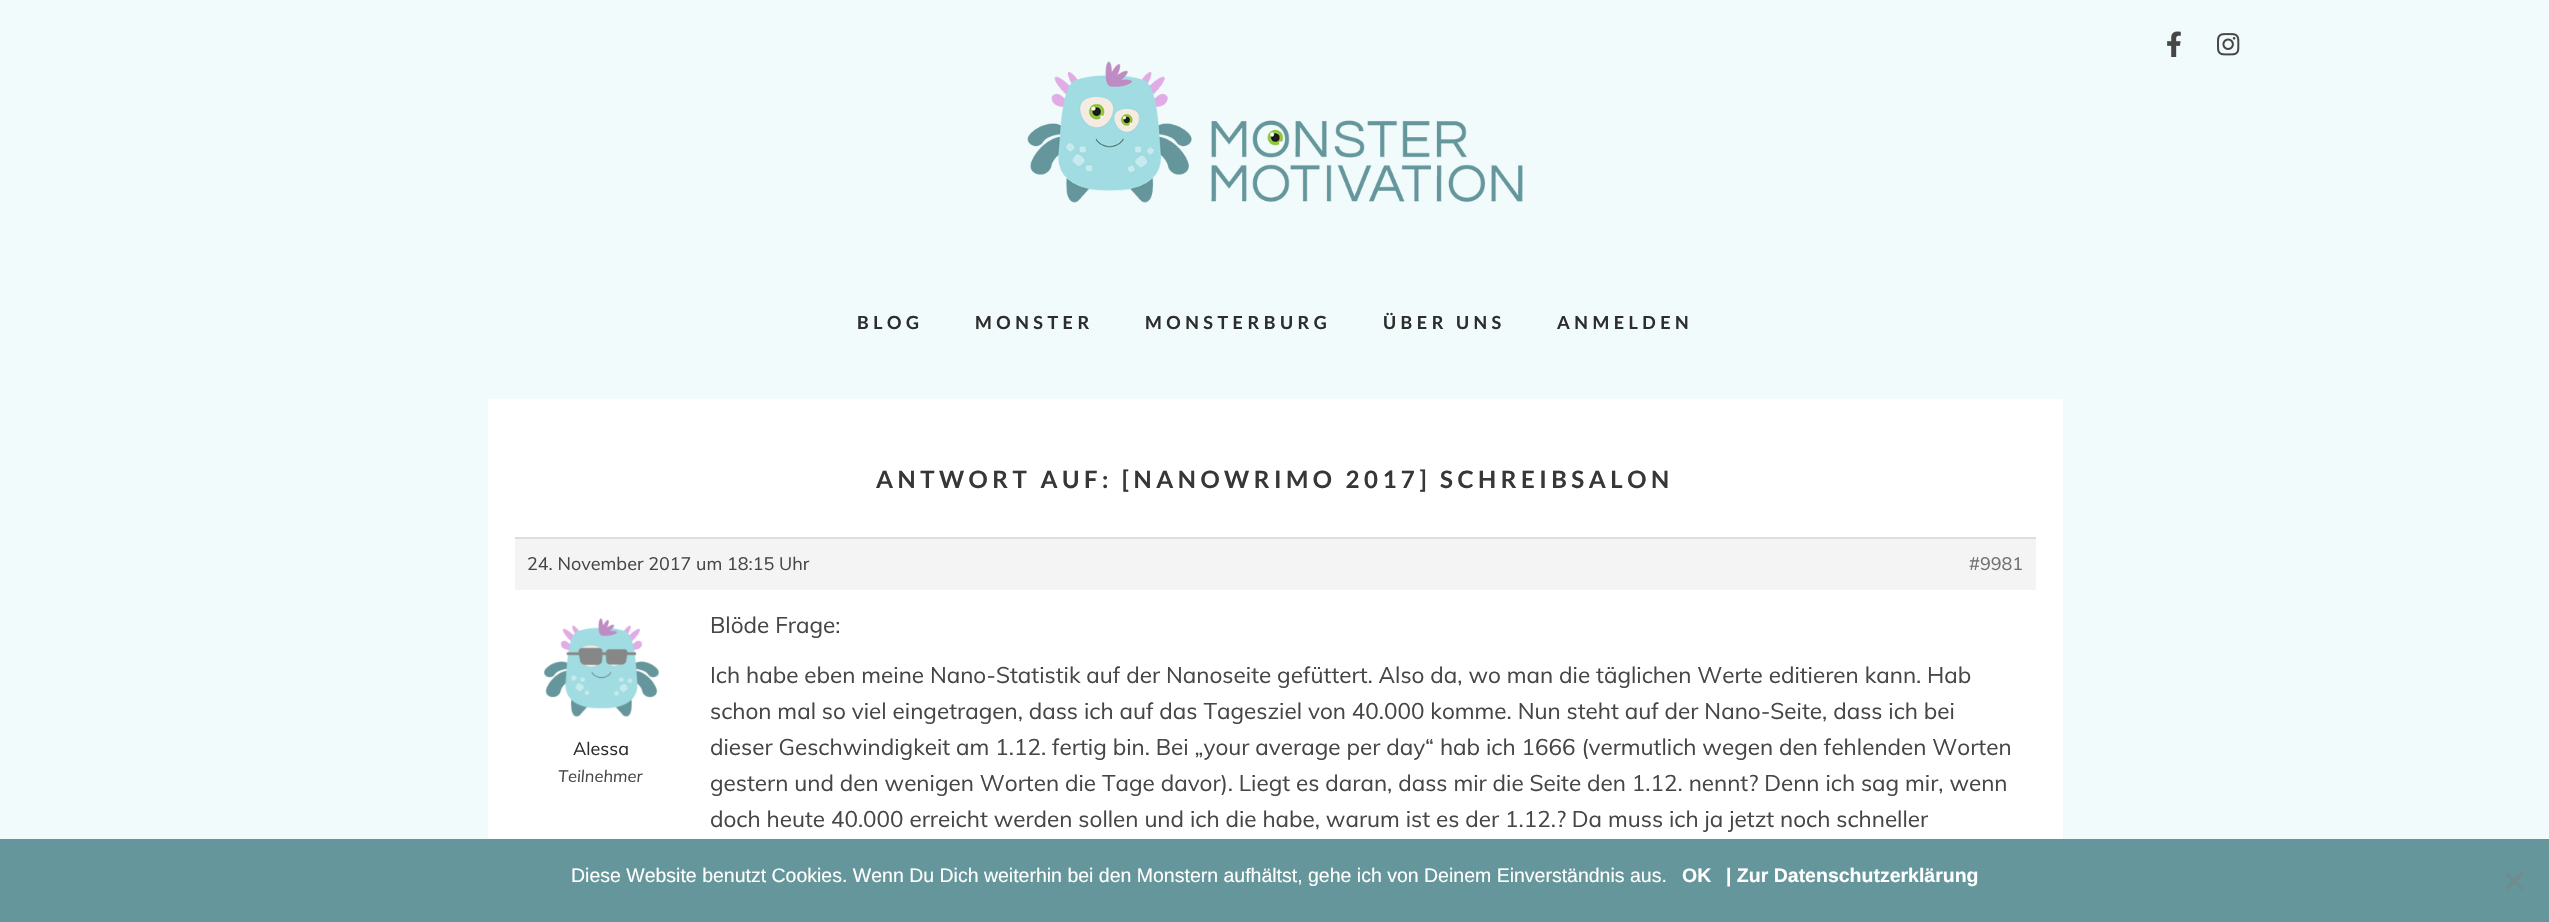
void draw(SkCanvas* canvas) {
    SkPaint paint;
    paint.setAntiAlias(true);
    auto spacedText = [&](const char* s, float x, float y, const SkFont& font, const SkPaint& ink, float letter, float word) {
        std::vector<SkGlyphID> glyphs(font.countText(s, strlen(s), SkTextEncoding::kUTF8));
        std::vector<float> xs(glyphs.size());
        font.textToGlyphs(s, strlen(s), SkTextEncoding::kUTF8, glyphs);
        font.getXPos(glyphs, xs, x);
        float extra = 0;
        for (size_t i = 0; i < glyphs.size(); i++) {
            xs[i] += extra;
            extra += letter + word * (glyphs[i] == font.unicharToGlyph(' '));
        }
        canvas->drawTextBlob(SkTextBlob::MakeFromPosHGlyphs(glyphs, xs, y, font), 0, 0, ink);
    };
    canvas->clear(0xFFF1FBFC);
    canvas->drawImageRect(SkImages::DeferredFromEncodedData(SkData::MakeFromFileName("img1.png")), SkRect::MakeXYWH(1027, 61, 496, 142), SkSamplingOptions());
    canvas->drawImageRect(SkImages::DeferredFromEncodedData(SkData::MakeFromFileName("img2.png")), SkRect::MakeXYWH(2167, 31, 14, 26), SkSamplingOptions());
    canvas->drawImageRect(SkImages::DeferredFromEncodedData(SkData::MakeFromFileName("img3.png")), SkRect::MakeXYWH(2217, 33, 23, 23), SkSamplingOptions());
    SkFont font1(fontMgr->matchFamilyStyle("Lato", SkFontStyle::Bold()), 18);
    font1.setSubpixel(true);
    paint.setColor(0xFF2D2D2D);
    spacedText("BLOG", 857, 329, font1, paint, 4.5f, 0);
    spacedText("MONSTER", 975, 329, font1, paint, 4.5f, 0);
    spacedText("MONSTERBURG", 1145, 329, font1, paint, 4.5f, 0);
    spacedText("ÜBER UNS", 1383, 329, font1, paint, 4.5f, 0);
    spacedText("ANMELDEN", 1557, 329, font1, paint, 4.5f, 0);
    paint.setColor(0xFFFFFFFF);
    canvas->drawRect(SkRect::MakeXYWH(488, 399, 1575, 440), paint);
    SkFont font2(fontMgr->matchFamilyStyle("Lato", SkFontStyle::Bold()), 24);
    font2.setSubpixel(true);
    paint.setColor(0xFF373737);
    spacedText("ANTWORT AUF: [NANOWRIMO 2017] SCHREIBSALON", 876, 488, font2, paint, 4.5f, 0);
    paint.setColor(0xFFF4F4F4);
    canvas->drawRect(SkRect::MakeXYWH(515, 539, 1521, 51), paint);
    paint.setColor(0xFFDDDDDD);
    canvas->drawRect(SkRect::MakeXYWH(515, 537, 1521, 2), paint);
    SkFont font3(fontMgr->matchFamilyStyle("Muli", SkFontStyle::Normal()), 18);
    font3.setSubpixel(true);
    paint.setColor(0xFF464646);
    canvas->drawString("24. November 2017 um 18:15 Uhr", 527, 570, font3, paint);
    paint.setColor(0xFF707070);
    canvas->drawString("#9981", 1969, 570, font3, paint);
    canvas->drawImageRect(SkImages::DeferredFromEncodedData(SkData::MakeFromFileName("img4.png")), SkRect::MakeXYWH(543, 618, 117, 99), SkSamplingOptions());
    paint.setColor(0xFF2D2D2D);
    canvas->drawString("Alessa", 573, 755, font3, paint);
    SkFont font4(fontMgr->matchFamilyStyle("Muli", SkFontStyle::Italic()), 16.5f);
    font4.setSubpixel(true);
    paint.setColor(0xFF464646);
    canvas->drawString("Teilnehmer", 558, 782, font4, paint);
    SkFont font5(fontMgr->matchFamilyStyle("Muli", SkFontStyle::Normal()), 22.5f);
    font5.setSubpixel(true);
    canvas->drawString("Blöde Frage:", 710, 633, font5, paint);
    canvas->drawString("Ich habe eben meine Nano-Statistik auf der Nanoseite gefüttert. Also da, wo man die täglichen Werte editieren kann. Hab", 710, 683, font5, paint);
    canvas->drawString("schon mal so viel eingetragen, dass ich auf das Tagesziel von 40.000 komme. Nun steht auf der Nano-Seite, dass ich bei", 710, 719, font5, paint);
    canvas->drawString("dieser Geschwindigkeit am 1.12. fertig bin. Bei „your average per day“ hab ich 1666 (vermutlich wegen den fehlenden Worten", 710, 755, font5, paint);
    canvas->drawString("gestern und den wenigen Worten die Tage davor). Liegt es daran, dass mir die Seite den 1.12. nennt? Denn ich sag mir, wenn", 710, 791, font5, paint);
    canvas->drawString("doch heute 40.000 erreicht werden sollen und ich die habe, warum ist es der 1.12.? Da muss ich ja jetzt noch schneller", 710, 827, font5, paint);
    paint.setColor(0xFF64969B);
    canvas->drawRect(SkRect::MakeXYWH(0, 839, 2549, 83), paint);
    SkFont font6(fontMgr->matchFamilyStyle("Liberation Sans", SkFontStyle::Normal()), 19.5f);
    font6.setSubpixel(true);
    paint.setColor(0xFFFFFFFF);
    canvas->drawString("Diese Website benutzt Cookies. Wenn Du Dich weiterhin bei den Monstern aufhältst, gehe ich von Deinem Einverständnis aus.", 571, 882, font6, paint);
    SkFont font7(fontMgr->matchFamilyStyle("Liberation Sans", SkFontStyle::Bold()), 19.5f);
    font7.setSubpixel(true);
    canvas->drawString("OK", 1682, 882, font7, paint);
    canvas->drawString("| Zur Datenschutzerklärung", 1726, 882, font7, paint);
    paint.setColor(0xFF728B8E);
    canvas->drawPath(SkPathBuilder().moveTo(2521, 872).lineTo(2523, 874.5f).lineTo(2507, 890.5f).lineTo(2505, 888).close().detach(), paint);
    canvas->drawPath(SkPathBuilder().moveTo(2505, 874.5f).lineTo(2507, 872).lineTo(2523, 888).lineTo(2521, 890.5f).close().detach(), paint);
}
